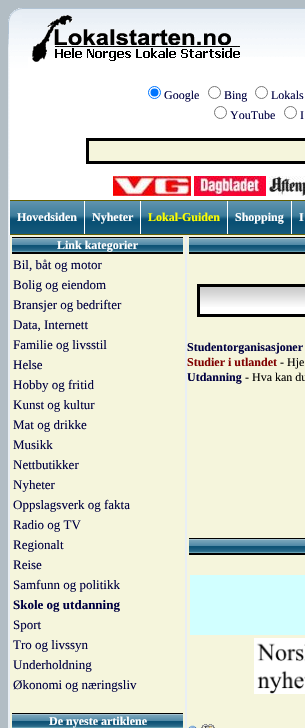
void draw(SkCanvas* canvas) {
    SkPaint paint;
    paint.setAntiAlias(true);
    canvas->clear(0xFFB2BDC4);
    paint.setColor(0xFFFFFFFF);
    canvas->drawRect(SkRect::MakeXYWH(10, 57, 295, 143), paint);
    canvas->drawImageRect(SkImages::DeferredFromEncodedData(SkData::MakeFromFileName("img1.png")), SkRect::MakeXYWH(8, 8, 20, 60), SkSamplingOptions());
    canvas->drawImageRect(SkImages::DeferredFromEncodedData(SkData::MakeFromFileName("img2.png")), SkRect::MakeXYWH(28, 8, 277, 49), SkSamplingOptions());
    canvas->drawImageRect(SkImages::DeferredFromEncodedData(SkData::MakeFromFileName("img3.png")), SkRect::MakeXYWH(32, 15, 208, 47), SkSamplingOptions());
    canvas->drawImageRect(SkImages::DeferredFromEncodedData(SkData::MakeFromFileName("img4.png")), SkRect::MakeXYWH(8, 68, 2, 167), SkSamplingOptions());
    paint.setStyle(SkPaint::kStroke_Style);
    paint.setStrokeWidth(1);
    paint.setColor(0xFF0075FF);
    canvas->drawCircle(154.5f, 92.5f, 6, paint);
    paint.setStyle(SkPaint::kFill_Style);
    canvas->drawCircle(154.5f, 92.5f, 4, paint);
    SkFont font1(fontMgr->matchFamilyStyle("Liberation Serif", SkFontStyle::Normal()), 12);
    font1.setSubpixel(true);
    paint.setColor(0xFF000042);
    canvas->drawString("Google", 164, 99, font1, paint);
    paint.setStyle(SkPaint::kStroke_Style);
    paint.setColor(0xFF767676);
    canvas->drawCircle(214.5f, 92.5f, 6, paint);
    paint.setStyle(SkPaint::kFill_Style);
    paint.setColor(0xFF000042);
    canvas->drawString("Bing", 224, 99, font1, paint);
    paint.setStyle(SkPaint::kStroke_Style);
    paint.setColor(0xFF767676);
    canvas->drawCircle(261.5f, 92.5f, 6, paint);
    paint.setStyle(SkPaint::kFill_Style);
    paint.setColor(0xFF000042);
    canvas->drawString("Lokals", 271, 99, font1, paint);
    paint.setStyle(SkPaint::kStroke_Style);
    paint.setColor(0xFF767676);
    canvas->drawCircle(220.5f, 112.5f, 6, paint);
    paint.setStyle(SkPaint::kFill_Style);
    paint.setColor(0xFF000042);
    canvas->drawString("YouTube", 230, 119, font1, paint);
    paint.setStyle(SkPaint::kStroke_Style);
    paint.setColor(0xFF767676);
    canvas->drawCircle(290.5f, 112.5f, 6, paint);
    paint.setStyle(SkPaint::kFill_Style);
    paint.setColor(0xFF000042);
    canvas->drawString("I", 300, 119, font1, paint);
    paint.setColor(0xFFF5F5DC);
    canvas->drawRect(SkRect::MakeXYWH(87.5f, 139.5f, 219, 23), paint);
    paint.setStyle(SkPaint::kStroke_Style);
    paint.setStrokeWidth(3);
    paint.setColor(0xFF000000);
    canvas->drawRect(SkRect::MakeXYWH(87.5f, 139.5f, 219, 23), paint);
    canvas->drawImageRect(SkImages::DeferredFromEncodedData(SkData::MakeFromFileName("img5.png")), SkRect::MakeXYWH(113, 176, 78, 20), SkSamplingOptions());
    canvas->drawImageRect(SkImages::DeferredFromEncodedData(SkData::MakeFromFileName("img6.png")), SkRect::MakeXYWH(194, 176, 72, 20), SkSamplingOptions());
    canvas->drawImageRect(SkImages::DeferredFromEncodedData(SkData::MakeFromFileName("img7.png")), SkRect::MakeXYWH(269, 176, 36, 20), SkSamplingOptions());
    canvas->drawImageRect(SkImages::DeferredFromEncodedData(SkData::MakeFromFileName("img8.png")), SkRect::MakeXYWH(10, 201, 295, 33), SkSamplingOptions());
    paint.setStyle(SkPaint::kFill_Style);
    paint.setColor(0xFF625E00);
    canvas->drawRect(SkRect::MakeXYWH(10, 200, 295, 1), paint);
    canvas->drawRect(SkRect::MakeXYWH(10, 234, 295, 1), paint);
    paint.setColor(0xFFFFFFFF);
    canvas->drawRect(SkRect::MakeXYWH(84, 201, 1, 33), paint);
    SkFont font2(fontMgr->matchFamilyStyle("Liberation Serif", SkFontStyle::Bold()), 12);
    font2.setSubpixel(true);
    canvas->drawString("Hovedsiden", 17, 221, font2, paint);
    canvas->drawRect(SkRect::MakeXYWH(140, 201, 1, 33), paint);
    canvas->drawString("Nyheter", 92, 221, font2, paint);
    canvas->drawRect(SkRect::MakeXYWH(227, 201, 1, 33), paint);
    paint.setColor(0xFFFFFF00);
    canvas->drawString("Lokal-Guiden", 148, 221, font2, paint);
    paint.setColor(0xFFFFFFFF);
    canvas->drawRect(SkRect::MakeXYWH(291, 201, 1, 33), paint);
    canvas->drawString("Shopping", 235, 221, font2, paint);
    canvas->drawString("I", 299, 221, font2, paint);
    paint.setColor(0xFFE8EEF5);
    canvas->drawRect(SkRect::MakeXYWH(8, 235, 2, 493), paint);
    paint.setColor(0xFFF5F5DC);
    canvas->drawRect(SkRect::MakeXYWH(10, 235, 175, 493), paint);
    canvas->drawImageRect(SkImages::DeferredFromEncodedData(SkData::MakeFromFileName("img9.png")), SkRect::MakeXYWH(12, 237, 171, 17), SkSamplingOptions());
    paint.setColor(0xFFFFFFFF);
    canvas->drawString("Link kategorier", 57, 249, font2, paint);
    SkFont font3(fontMgr->matchFamilyStyle("Liberation Serif", SkFontStyle::Normal()), 13);
    font3.setSubpixel(true);
    paint.setColor(0xFF000042);
    canvas->drawString("Bil, båt og motor", 13, 269, font3, paint);
    canvas->drawString("Bolig og eiendom", 13, 289, font3, paint);
    canvas->drawString("Bransjer og bedrifter", 13, 309, font3, paint);
    canvas->drawString("Data, Internett", 13, 329, font3, paint);
    canvas->drawString("Familie og livsstil", 13, 349, font3, paint);
    canvas->drawString("Helse", 13, 369, font3, paint);
    canvas->drawString("Hobby og fritid", 13, 389, font3, paint);
    canvas->drawString("Kunst og kultur", 13, 409, font3, paint);
    canvas->drawString("Mat og drikke", 13, 429, font3, paint);
    canvas->drawString("Musikk", 13, 449, font3, paint);
    canvas->drawString("Nettbutikker", 13, 469, font3, paint);
    canvas->drawString("Nyheter", 13, 489, font3, paint);
    canvas->drawString("Oppslagsverk og fakta", 13, 509, font3, paint);
    canvas->drawString("Radio og TV", 13, 529, font3, paint);
    canvas->drawString("Regionalt", 13, 549, font3, paint);
    canvas->drawString("Reise", 13, 569, font3, paint);
    canvas->drawString("Samfunn og politikk", 13, 589, font3, paint);
    SkFont font4(fontMgr->matchFamilyStyle("Liberation Serif", SkFontStyle::Bold()), 13);
    font4.setSubpixel(true);
    canvas->drawString("Skole og utdanning", 13, 609, font4, paint);
    canvas->drawString("Sport", 13, 629, font3, paint);
    canvas->drawString("Tro og livssyn", 13, 649, font3, paint);
    canvas->drawString("Underholdning", 13, 669, font3, paint);
    canvas->drawString("Økonomi og næringsliv", 13, 689, font3, paint);
    canvas->drawImageRect(SkImages::DeferredFromEncodedData(SkData::MakeFromFileName("img10.png")), SkRect::MakeXYWH(12, 713, 171, 15), SkSamplingOptions());
    paint.setColor(0xFFFFFFFF);
    canvas->drawString("De nyeste artiklene", 49, 725, font2, paint);
    paint.setColor(0xFFE8EEF5);
    canvas->drawRect(SkRect::MakeXYWH(185, 235, 2, 493), paint);
    paint.setColor(0xFFF5F5DC);
    canvas->drawRect(SkRect::MakeXYWH(187, 235, 118, 493), paint);
    canvas->drawImageRect(SkImages::DeferredFromEncodedData(SkData::MakeFromFileName("img11.png")), SkRect::MakeXYWH(189, 237, 116, 17), SkSamplingOptions());
    paint.setColor(0xFFFFFFFF);
    canvas->drawRect(SkRect::MakeXYWH(200, 307, 105, 7), paint);
    canvas->drawImageRect(SkImages::DeferredFromEncodedData(SkData::MakeFromFileName("img12.png")), SkRect::MakeXYWH(200, 287, 105, 20), SkSamplingOptions());
    paint.setStyle(SkPaint::kStroke_Style);
    paint.setColor(0xFF000000);
    canvas->drawRect(SkRect::MakeXYWH(198.5f, 285.5f, 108, 30), paint);
    paint.setStyle(SkPaint::kFill_Style);
    paint.setColor(0xFF000042);
    canvas->drawString("Studentorganisasjoner", 187, 351, font2, paint);
    paint.setColor(0xFF800000);
    canvas->drawString("Studier i utlandet", 187, 366, font2, paint);
    paint.setColor(0xFF000000);
    canvas->drawString("- Hje", 280, 366, font1, paint);
    paint.setColor(0xFF000042);
    canvas->drawString("Utdanning", 187, 381, font2, paint);
    paint.setColor(0xFF000000);
    canvas->drawString("- Hva kan du", 245, 381, font1, paint);
    canvas->drawImageRect(SkImages::DeferredFromEncodedData(SkData::MakeFromFileName("img11.png")), SkRect::MakeXYWH(189, 538, 116, 17), SkSamplingOptions());
    canvas->drawImageRect(SkImages::DeferredFromEncodedData(SkData::MakeFromFileName("img13.png")), SkRect::MakeXYWH(190, 575, 115, 119), SkSamplingOptions());
    canvas->drawImageRect(SkImages::DeferredFromEncodedData(SkData::MakeFromFileName("img14.png")), SkRect::MakeXYWH(188, 725, 9, 3), SkSamplingOptions());
    canvas->drawImageRect(SkImages::DeferredFromEncodedData(SkData::MakeFromFileName("img15.png")), SkRect::MakeXYWH(201, 724, 14, 4), SkSamplingOptions());
}
